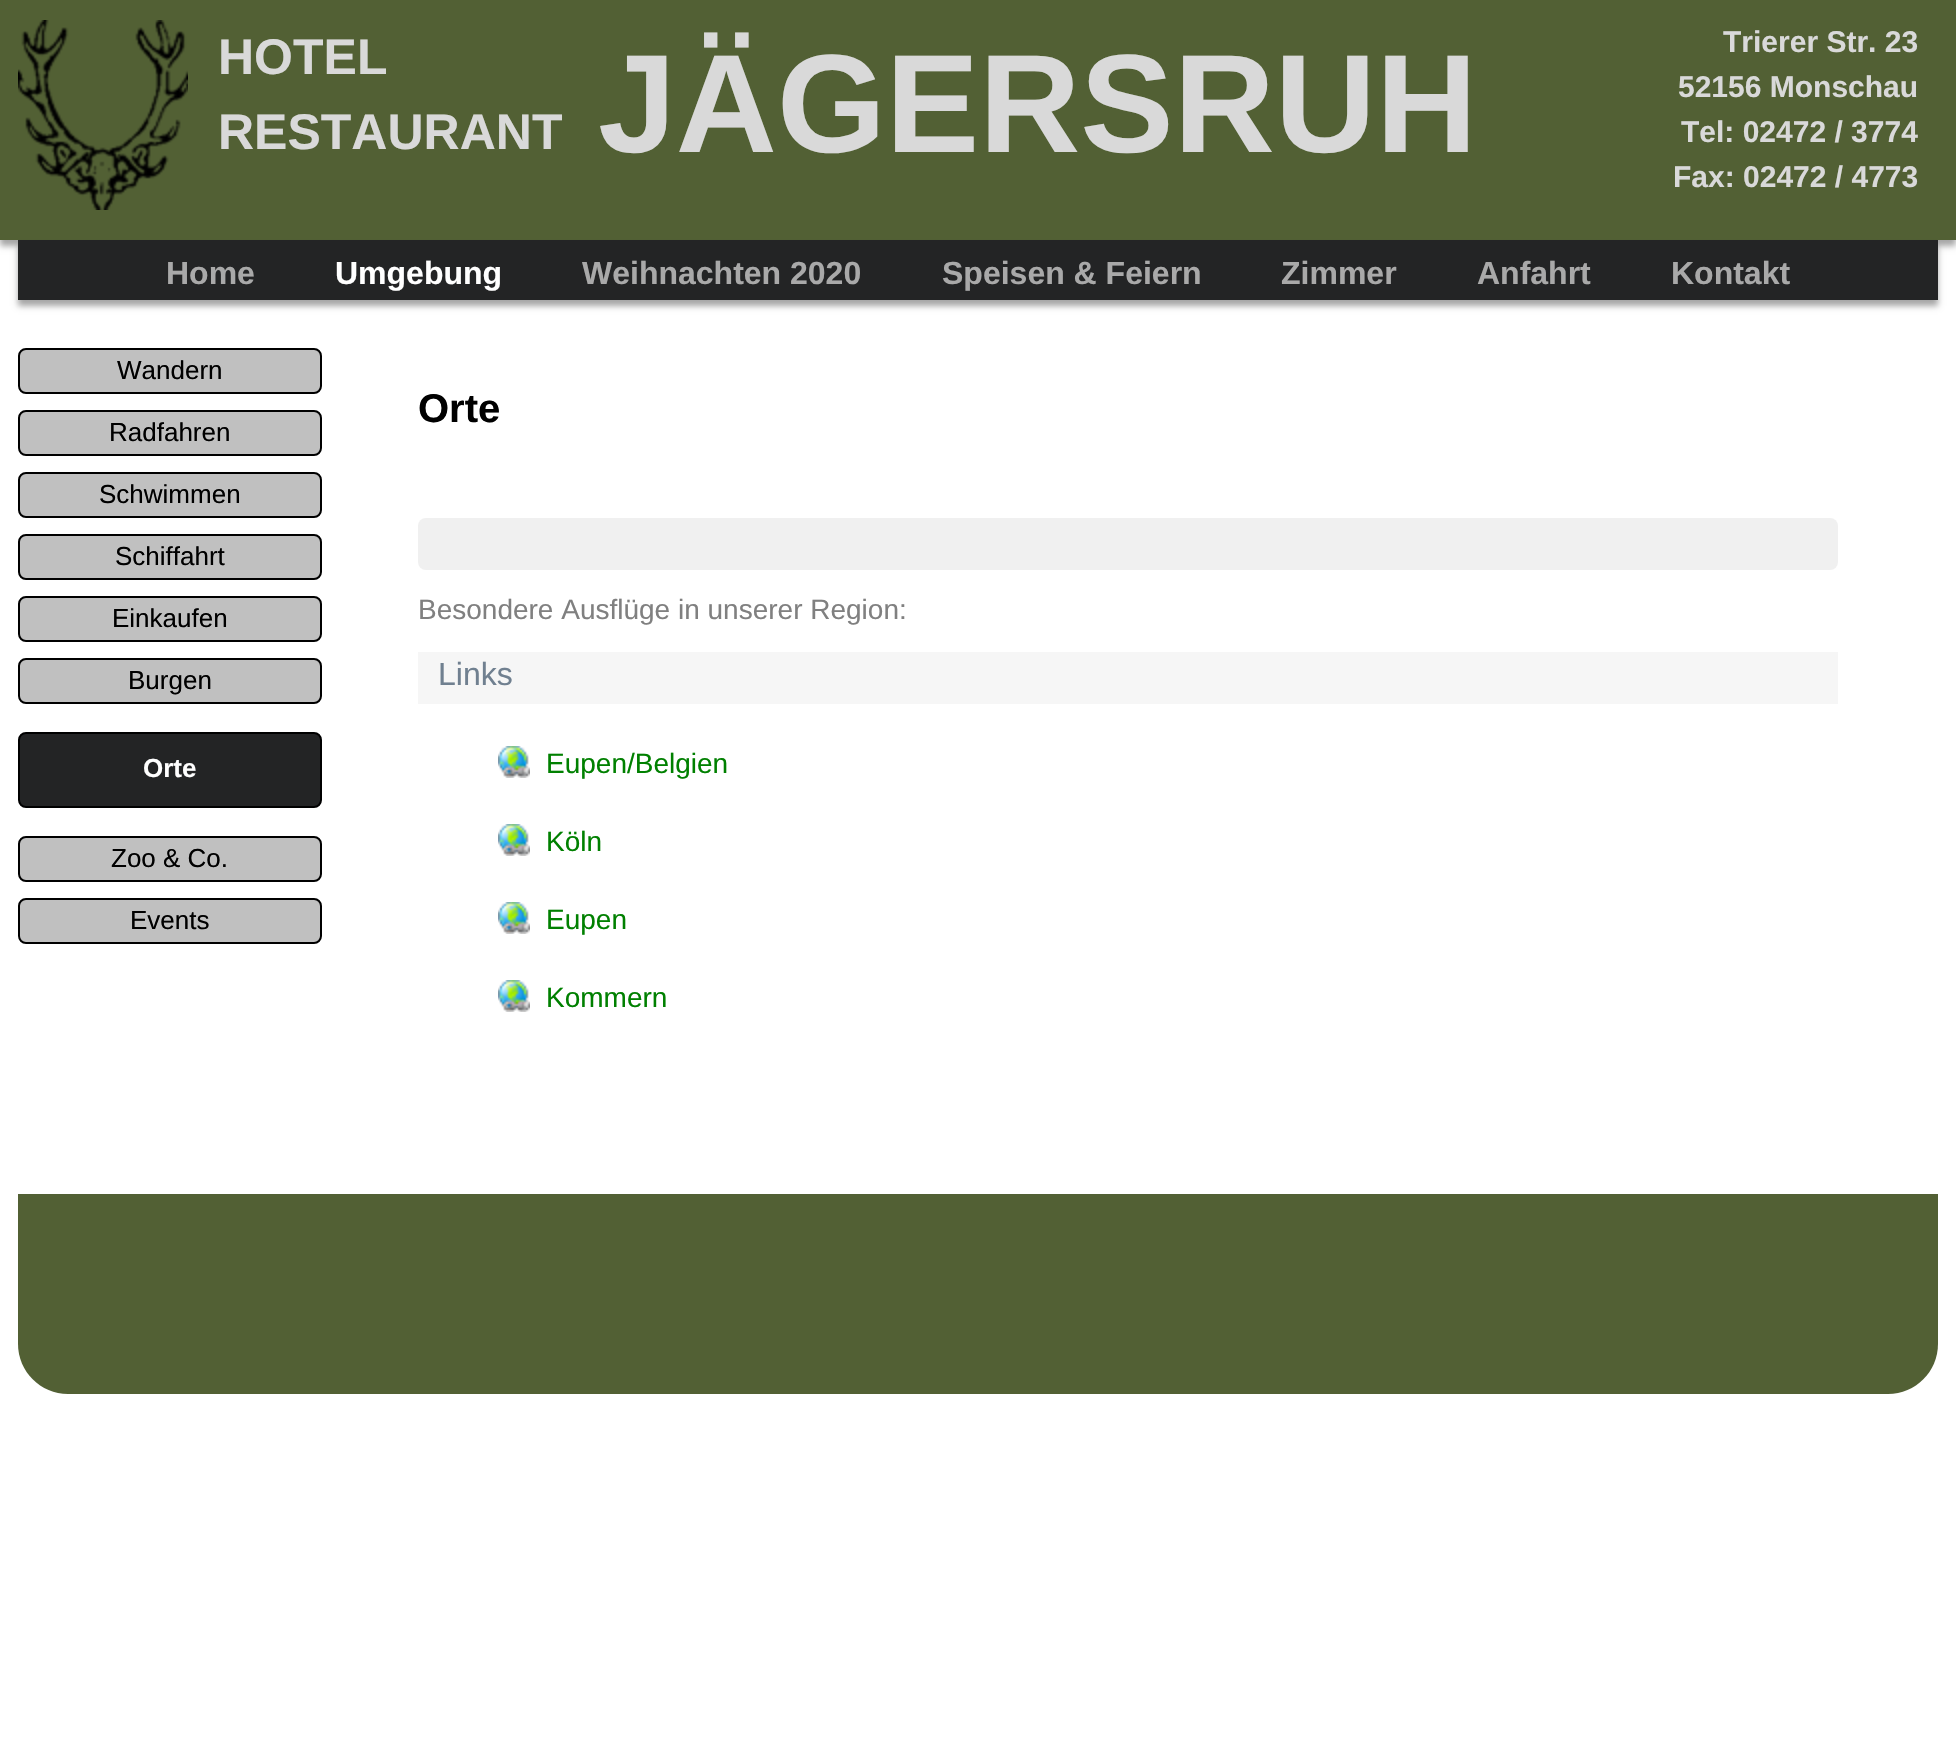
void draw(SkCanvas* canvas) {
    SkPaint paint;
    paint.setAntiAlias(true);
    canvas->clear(0xFFFFFFFF);
    paint.setColor(0x59000000);
    paint.setMaskFilter(SkMaskFilter::MakeBlur(kNormal_SkBlurStyle, 3));
    canvas->drawRect(SkRect::MakeXYWH(0, 6, 1956, 240), paint);
    paint.setMaskFilter(nullptr);
    paint.setColor(0xFF526034);
    canvas->drawRect(SkRect::MakeXYWH(0, 0, 1956, 240), paint);
    canvas->drawImageRect(SkImages::DeferredFromEncodedData(SkData::MakeFromFileName("img1.png")), SkRect::MakeXYWH(18, 20, 170, 190), SkSamplingOptions());
    SkFont font1(fontMgr->matchFamilyStyle("Liberation Sans", SkFontStyle::Bold()), 50);
    font1.setSubpixel(true);
    paint.setColor(0xFFD9D9D9);
    canvas->drawString("HOTEL", 218, 74, font1, paint);
    canvas->drawString("RESTAURANT", 218, 149, font1, paint);
    SkFont font2(fontMgr->matchFamilyStyle("Liberation Sans", SkFontStyle::Bold()), 140);
    font2.setSubpixel(true);
    canvas->drawString("JÄGERSRUH", 598, 152, font2, paint);
    SkFont font3(fontMgr->matchFamilyStyle("Liberation Sans", SkFontStyle::Bold()), 30);
    font3.setSubpixel(true);
    canvas->drawString("Trierer Str. 23", 1723, 52, font3, paint);
    canvas->drawString("52156 Monschau", 1678, 97, font3, paint);
    canvas->drawString("Tel: 02472 / 3774", 1681, 142, font3, paint);
    canvas->drawString("Fax: 02472 / 4773", 1673, 187, font3, paint);
    paint.setColor(0x59000000);
    paint.setMaskFilter(SkMaskFilter::MakeBlur(kNormal_SkBlurStyle, 3));
    canvas->drawRect(SkRect::MakeXYWH(18, 246, 1920, 60), paint);
    paint.setMaskFilter(nullptr);
    paint.setColor(0xFF232425);
    canvas->drawRect(SkRect::MakeXYWH(18, 240, 1920, 60), paint);
    SkFont font4(fontMgr->matchFamilyStyle("Liberation Sans", SkFontStyle::Bold()), 32);
    font4.setSubpixel(true);
    paint.setColor(0xFFA9A9A9);
    canvas->drawString("Home", 166, 284, font4, paint);
    paint.setColor(0xFFFFFFFF);
    canvas->drawString("Umgebung", 335, 284, font4, paint);
    paint.setColor(0xFFA9A9A9);
    canvas->drawString("Weihnachten 2020", 582, 284, font4, paint);
    canvas->drawString("Speisen & Feiern", 942, 284, font4, paint);
    canvas->drawString("Zimmer", 1281, 284, font4, paint);
    canvas->drawString("Anfahrt", 1477, 284, font4, paint);
    canvas->drawString("Kontakt", 1671, 284, font4, paint);
    paint.setColor(0xFFC0C0C0);
    canvas->drawRoundRect(SkRect::MakeXYWH(19, 349, 302, 44), 7, 7, paint);
    paint.setStyle(SkPaint::kStroke_Style);
    paint.setStrokeWidth(2);
    paint.setColor(0xFF000000);
    canvas->drawRoundRect(SkRect::MakeXYWH(19, 349, 302, 44), 7, 7, paint);
    SkFont font5(fontMgr->matchFamilyStyle("Liberation Sans", SkFontStyle::Normal()), 26);
    font5.setSubpixel(true);
    paint.setStyle(SkPaint::kFill_Style);
    canvas->drawString("Wandern", 117, 379, font5, paint);
    paint.setColor(0xFFC0C0C0);
    canvas->drawRoundRect(SkRect::MakeXYWH(19, 411, 302, 44), 7, 7, paint);
    paint.setStyle(SkPaint::kStroke_Style);
    paint.setColor(0xFF000000);
    canvas->drawRoundRect(SkRect::MakeXYWH(19, 411, 302, 44), 7, 7, paint);
    paint.setStyle(SkPaint::kFill_Style);
    canvas->drawString("Radfahren", 109, 441, font5, paint);
    paint.setColor(0xFFC0C0C0);
    canvas->drawRoundRect(SkRect::MakeXYWH(19, 473, 302, 44), 7, 7, paint);
    paint.setStyle(SkPaint::kStroke_Style);
    paint.setColor(0xFF000000);
    canvas->drawRoundRect(SkRect::MakeXYWH(19, 473, 302, 44), 7, 7, paint);
    paint.setStyle(SkPaint::kFill_Style);
    canvas->drawString("Schwimmen", 99, 503, font5, paint);
    paint.setColor(0xFFC0C0C0);
    canvas->drawRoundRect(SkRect::MakeXYWH(19, 535, 302, 44), 7, 7, paint);
    paint.setStyle(SkPaint::kStroke_Style);
    paint.setColor(0xFF000000);
    canvas->drawRoundRect(SkRect::MakeXYWH(19, 535, 302, 44), 7, 7, paint);
    paint.setStyle(SkPaint::kFill_Style);
    canvas->drawString("Schiffahrt", 115, 565, font5, paint);
    paint.setColor(0xFFC0C0C0);
    canvas->drawRoundRect(SkRect::MakeXYWH(19, 597, 302, 44), 7, 7, paint);
    paint.setStyle(SkPaint::kStroke_Style);
    paint.setColor(0xFF000000);
    canvas->drawRoundRect(SkRect::MakeXYWH(19, 597, 302, 44), 7, 7, paint);
    paint.setStyle(SkPaint::kFill_Style);
    canvas->drawString("Einkaufen", 112, 627, font5, paint);
    paint.setColor(0xFFC0C0C0);
    canvas->drawRoundRect(SkRect::MakeXYWH(19, 659, 302, 44), 7, 7, paint);
    paint.setStyle(SkPaint::kStroke_Style);
    paint.setColor(0xFF000000);
    canvas->drawRoundRect(SkRect::MakeXYWH(19, 659, 302, 44), 7, 7, paint);
    paint.setStyle(SkPaint::kFill_Style);
    canvas->drawString("Burgen", 128, 689, font5, paint);
    paint.setColor(0xFF232425);
    canvas->drawRoundRect(SkRect::MakeXYWH(19, 733, 302, 74), 7, 7, paint);
    paint.setStyle(SkPaint::kStroke_Style);
    paint.setColor(0xFF000000);
    canvas->drawRoundRect(SkRect::MakeXYWH(19, 733, 302, 74), 7, 7, paint);
    SkFont font6(fontMgr->matchFamilyStyle("Liberation Sans", SkFontStyle::Bold()), 26);
    font6.setSubpixel(true);
    paint.setStyle(SkPaint::kFill_Style);
    paint.setColor(0xFFFFFFFF);
    canvas->drawString("Orte", 143, 777, font6, paint);
    paint.setColor(0xFFC0C0C0);
    canvas->drawRoundRect(SkRect::MakeXYWH(19, 837, 302, 44), 7, 7, paint);
    paint.setStyle(SkPaint::kStroke_Style);
    paint.setColor(0xFF000000);
    canvas->drawRoundRect(SkRect::MakeXYWH(19, 837, 302, 44), 7, 7, paint);
    paint.setStyle(SkPaint::kFill_Style);
    canvas->drawString("Zoo & Co.", 111, 867, font5, paint);
    paint.setColor(0xFFC0C0C0);
    canvas->drawRoundRect(SkRect::MakeXYWH(19, 899, 302, 44), 7, 7, paint);
    paint.setStyle(SkPaint::kStroke_Style);
    paint.setColor(0xFF000000);
    canvas->drawRoundRect(SkRect::MakeXYWH(19, 899, 302, 44), 7, 7, paint);
    paint.setStyle(SkPaint::kFill_Style);
    canvas->drawString("Events", 130, 929, font5, paint);
    SkFont font7(fontMgr->matchFamilyStyle("Liberation Sans", SkFontStyle::Bold()), 40);
    font7.setSubpixel(true);
    canvas->drawString("Orte", 418, 422, font7, paint);
    paint.setColor(0xFFF0F0F0);
    canvas->drawRoundRect(SkRect::MakeXYWH(418, 518, 1420, 52), 8, 8, paint);
    SkFont font8(fontMgr->matchFamilyStyle("Liberation Sans", SkFontStyle::Normal()), 28);
    font8.setSubpixel(true);
    paint.setColor(0xFF808080);
    canvas->drawString("Besondere Ausflüge in unserer Region:", 418, 619, font8, paint);
    paint.setColor(0xFFF6F6F6);
    canvas->drawRect(SkRect::MakeXYWH(418, 652, 1420, 52), paint);
    SkFont font9(fontMgr->matchFamilyStyle("Liberation Sans", SkFontStyle::Normal()), 32);
    font9.setSubpixel(true);
    paint.setColor(0xFF708090);
    canvas->drawString("Links", 438, 685, font9, paint);
    canvas->drawImageRect(SkImages::DeferredFromEncodedData(SkData::MakeFromFileName("img2.png")), SkRect::MakeXYWH(498, 746, 32, 32), SkSamplingOptions());
    paint.setColor(0xFF008000);
    canvas->drawString("Eupen/Belgien", 546, 773, font8, paint);
    canvas->drawImageRect(SkImages::DeferredFromEncodedData(SkData::MakeFromFileName("img2.png")), SkRect::MakeXYWH(498, 824, 32, 32), SkSamplingOptions());
    canvas->drawString("Köln", 546, 851, font8, paint);
    canvas->drawImageRect(SkImages::DeferredFromEncodedData(SkData::MakeFromFileName("img2.png")), SkRect::MakeXYWH(498, 902, 32, 32), SkSamplingOptions());
    canvas->drawString("Eupen", 546, 929, font8, paint);
    canvas->drawImageRect(SkImages::DeferredFromEncodedData(SkData::MakeFromFileName("img2.png")), SkRect::MakeXYWH(498, 980, 32, 32), SkSamplingOptions());
    canvas->drawString("Kommern", 546, 1007, font8, paint);
    paint.setColor(0xFF526034);
    canvas->drawPath(SkPathBuilder().moveTo(18, 1194).lineTo(1938, 1194).lineTo(1938, 1344).cubicTo(1938, 1371.5f, 1915.5f, 1394, 1888, 1394).lineTo(68, 1394).cubicTo(40.5f, 1394, 18, 1371.5f, 18, 1344).close().detach(), paint);
}
